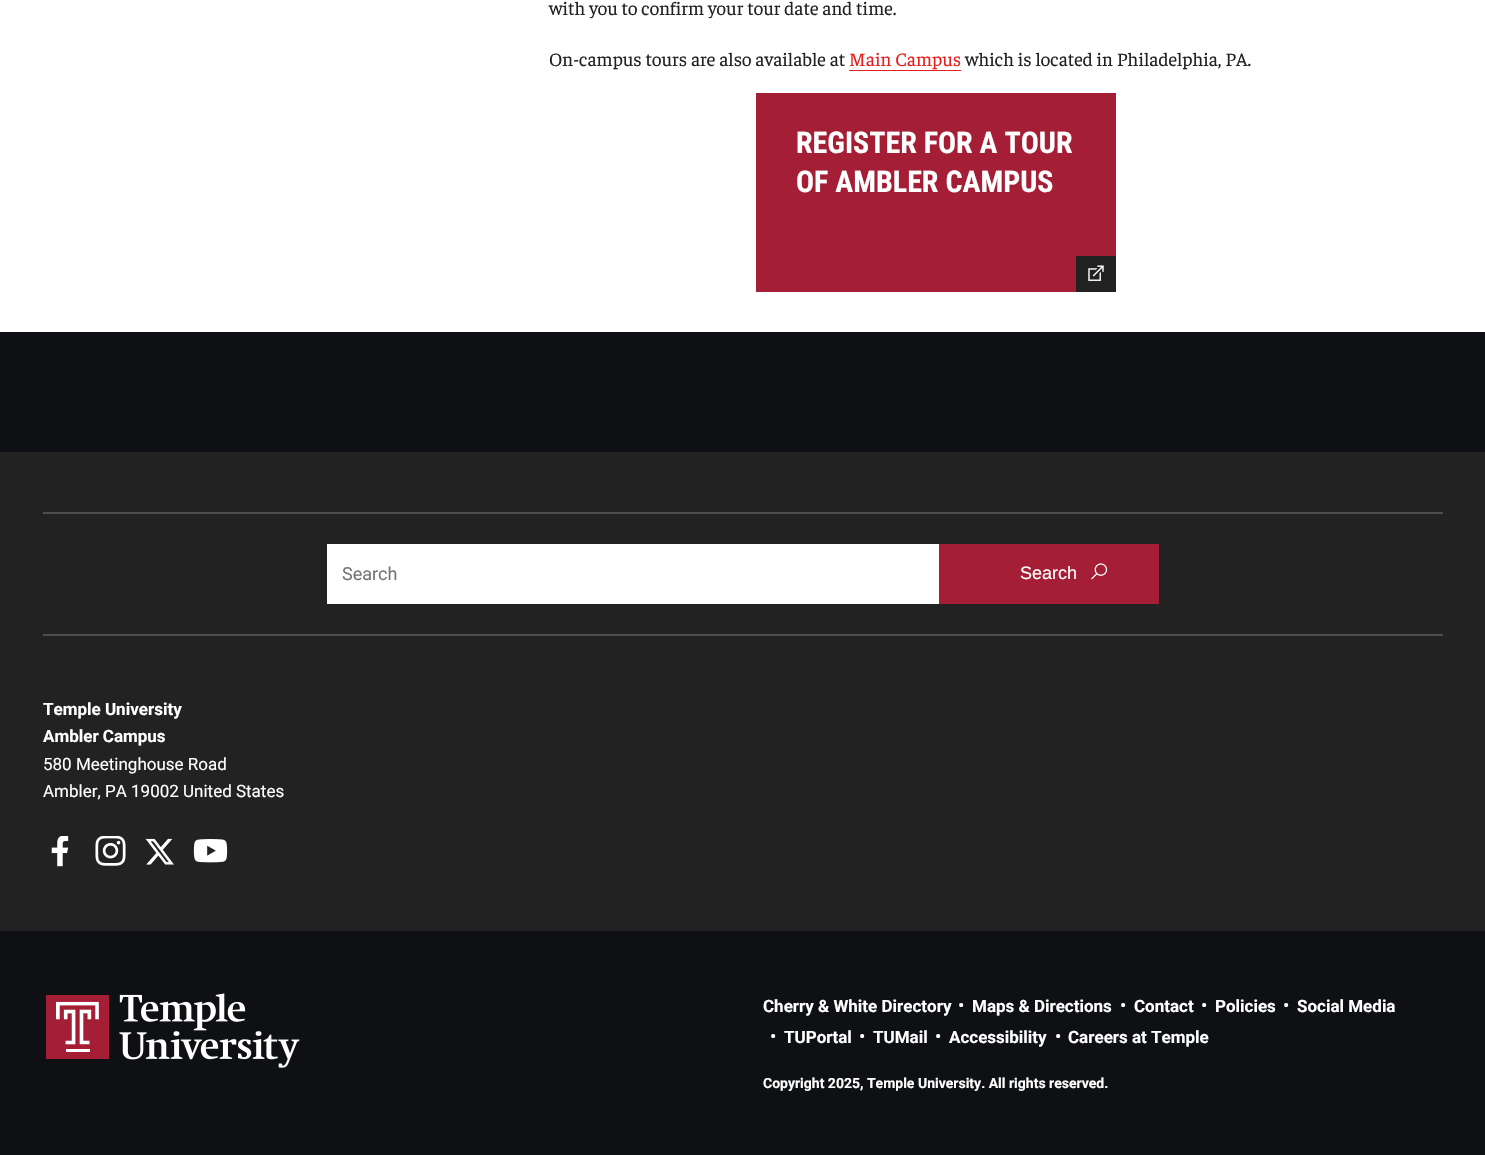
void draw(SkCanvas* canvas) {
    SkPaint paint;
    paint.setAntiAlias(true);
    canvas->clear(0xFFFFFFFF);
    SkFont font1(fontMgr->matchFamilyStyle("Faustina", SkFontStyle::Normal()), 19);
    font1.setSubpixel(true);
    paint.setColor(0xFF222222);
    canvas->drawString("with you to confirm your tour date and time.", 549, 15, font1, paint);
    canvas->drawString("On-campus tours are also available at", 549, 66, font1, paint);
    paint.setColor(0xFFE7201D);
    canvas->drawString("Main Campus", 849, 66, font1, paint);
    canvas->drawRect(SkRect::MakeXYWH(849, 70, 112, 1), paint);
    paint.setColor(0xFF222222);
    canvas->drawString("which is located in Philadelphia, PA.", 965, 66, font1, paint);
    paint.setColor(0xFFA41E35);
    canvas->drawRect(SkRect::MakeXYWH(756, 93, 360, 199), paint);
    SkFont font2(fontMgr->matchFamilyStyle("Roboto Condensed", SkFontStyle::Bold()), 30);
    font2.setSubpixel(true);
    paint.setColor(0xFFFFFFFF);
    canvas->drawString("REGISTER FOR A TOUR", 796, 153, font2, paint);
    canvas->drawString("OF AMBLER CAMPUS", 796, 192, font2, paint);
    paint.setColor(0xFF222222);
    canvas->drawRect(SkRect::MakeXYWH(1076, 256, 40, 36), paint);
    canvas->drawImageRect(SkImages::DeferredFromEncodedData(SkData::MakeFromFileName("img1.png")), SkRect::MakeXYWH(1088, 265, 16, 16), SkSamplingOptions());
    canvas->drawRect(SkRect::MakeXYWH(0, 452, 1485, 479), paint);
    paint.setColor(0xFF0E1014);
    canvas->drawRect(SkRect::MakeXYWH(0, 332, 1485, 120), paint);
    paint.setColor(0xFF4E4E4E);
    canvas->drawRect(SkRect::MakeXYWH(43, 512, 1400, 2), paint);
    canvas->drawRect(SkRect::MakeXYWH(43, 634, 1400, 2), paint);
    paint.setColor(0xFFFFFFFF);
    canvas->drawRect(SkRect::MakeXYWH(327, 544, 612, 60), paint);
    SkFont font3(fontMgr->matchFamilyStyle("Roboto", SkFontStyle::Normal()), 18);
    font3.setSubpixel(true);
    paint.setColor(0xFF757575);
    canvas->drawString("Search", 342, 580, font3, paint);
    paint.setColor(0xFFA41E35);
    canvas->drawRect(SkRect::MakeXYWH(939, 544, 220, 60), paint);
    SkFont font4(fontMgr->matchFamilyStyle("Liberation Sans", SkFontStyle::Normal()), 18);
    font4.setSubpixel(true);
    paint.setColor(0xFFFFFFFF);
    canvas->drawString("Search", 1020, 579, font4, paint);
    canvas->drawImageRect(SkImages::DeferredFromEncodedData(SkData::MakeFromFileName("img2.png")), SkRect::MakeXYWH(1091, 563, 17, 17), SkSamplingOptions());
    SkFont font5(fontMgr->matchFamilyStyle("Roboto", SkFontStyle::Bold()), 17);
    font5.setSubpixel(true);
    canvas->drawString("Temple University", 43, 715, font5, paint);
    canvas->drawString("Ambler Campus", 43, 742, font5, paint);
    SkFont font6(fontMgr->matchFamilyStyle("Roboto", SkFontStyle::Normal()), 17);
    font6.setSubpixel(true);
    canvas->drawString("580 Meetinghouse Road", 43, 770, font6, paint);
    canvas->drawString("Ambler, PA 19002 United States", 43, 797, font6, paint);
    canvas->drawImageRect(SkImages::DeferredFromEncodedData(SkData::MakeFromFileName("img3.png")), SkRect::MakeXYWH(51, 836, 18, 31), SkSamplingOptions());
    canvas->drawImageRect(SkImages::DeferredFromEncodedData(SkData::MakeFromFileName("img4.png")), SkRect::MakeXYWH(95, 836, 31, 30), SkSamplingOptions());
    canvas->drawImageRect(SkImages::DeferredFromEncodedData(SkData::MakeFromFileName("img5.png")), SkRect::MakeXYWH(145, 838, 29, 27), SkSamplingOptions());
    canvas->drawImageRect(SkImages::DeferredFromEncodedData(SkData::MakeFromFileName("img6.png")), SkRect::MakeXYWH(193, 839, 35, 24), SkSamplingOptions());
    paint.setColor(0xFF0E1014);
    canvas->drawRect(SkRect::MakeXYWH(0, 931, 1485, 224), paint);
    canvas->drawImageRect(SkImages::DeferredFromEncodedData(SkData::MakeFromFileName("img7.png")), SkRect::MakeXYWH(46, 993, 254, 75), SkSamplingOptions());
    paint.setColor(0xFFFFFFFF);
    canvas->drawString("Cherry & White Directory", 763, 1012, font5, paint);
    SkFont font7(fontMgr->matchFamilyStyle("Roboto", SkFontStyle::Normal()), 19);
    font7.setSubpixel(true);
    canvas->drawString("•", 958, 1012, font7, paint);
    canvas->drawString("Maps & Directions", 972, 1012, font5, paint);
    canvas->drawString("•", 1120, 1012, font7, paint);
    canvas->drawString("Contact", 1134, 1012, font5, paint);
    canvas->drawString("•", 1201, 1012, font7, paint);
    canvas->drawString("Policies", 1215, 1012, font5, paint);
    canvas->drawString("•", 1283, 1012, font7, paint);
    canvas->drawString("Social Media", 1297, 1012, font5, paint);
    canvas->drawString("•", 770, 1043, font7, paint);
    canvas->drawString("TUPortal", 784, 1043, font5, paint);
    canvas->drawString("•", 859, 1043, font7, paint);
    canvas->drawString("TUMail", 873, 1043, font5, paint);
    canvas->drawString("•", 935, 1043, font7, paint);
    canvas->drawString("Accessibility", 949, 1043, font5, paint);
    canvas->drawString("•", 1055, 1043, font7, paint);
    canvas->drawString("Careers at Temple", 1068, 1043, font5, paint);
    SkFont font8(fontMgr->matchFamilyStyle("Roboto", SkFontStyle::Bold()), 14);
    font8.setSubpixel(true);
    canvas->drawString("Copyright 2025, Temple University. All rights reserved.", 763, 1088, font8, paint);
}
